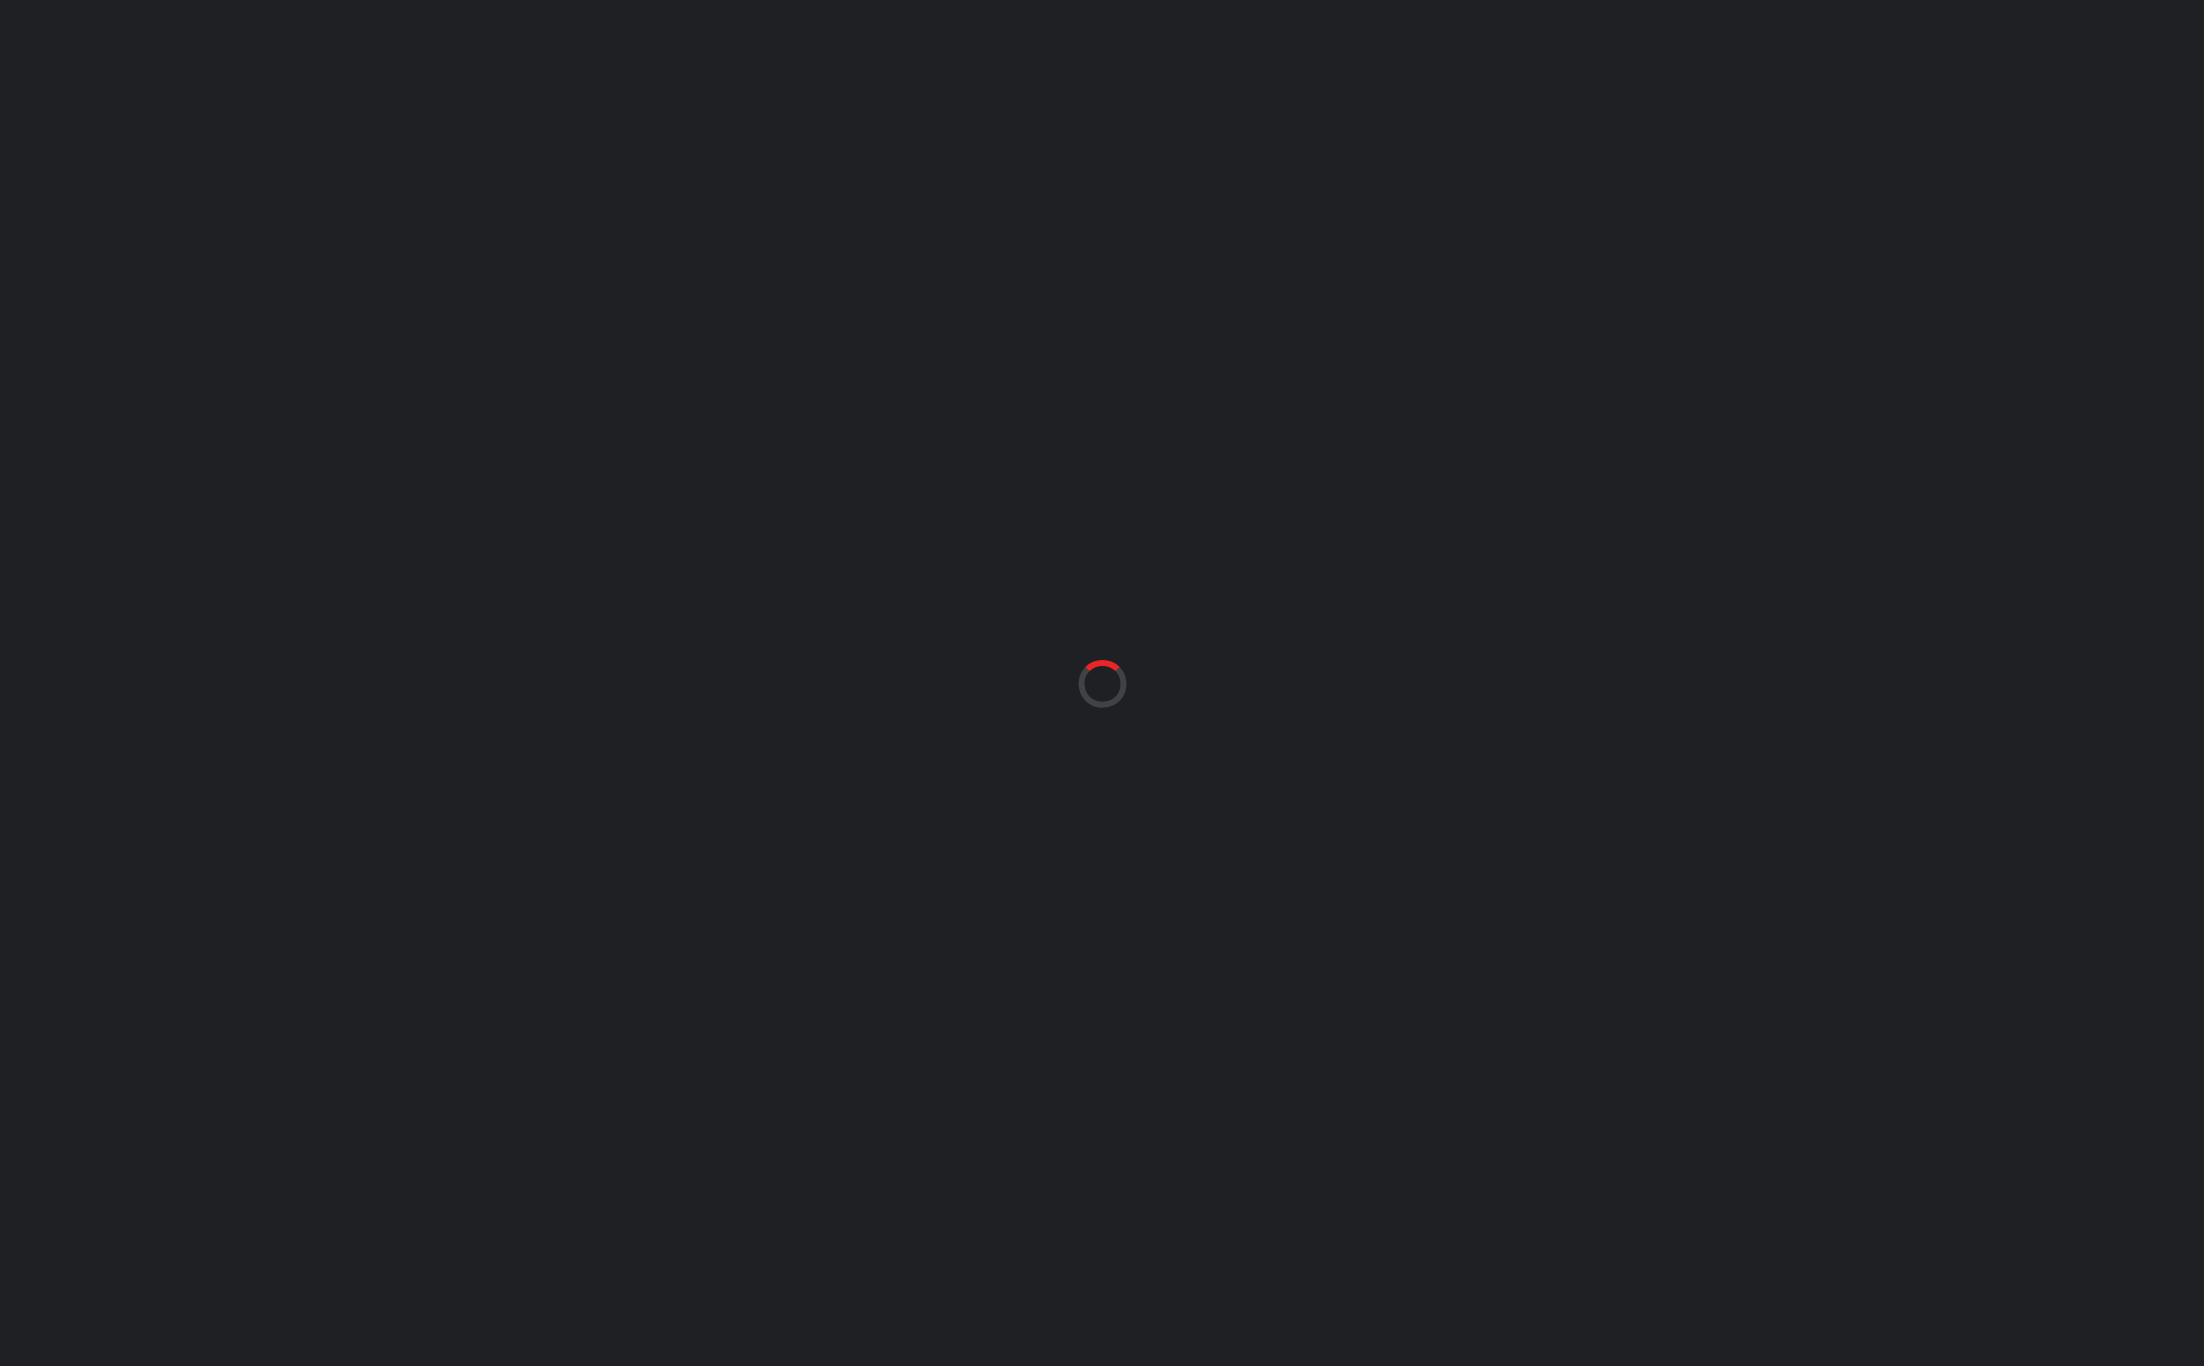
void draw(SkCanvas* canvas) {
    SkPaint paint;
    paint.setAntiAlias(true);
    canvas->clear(0xFF1E2024);
    paint.setStyle(SkPaint::kStroke_Style);
    paint.setStrokeWidth(6);
    paint.setColor(0xFFEB2427);
    canvas->drawPath(SkPathBuilder().moveTo(1087.5f, 669).cubicTo(1095.5f, 661, 1109.5f, 661, 1117.5f, 669).detach(), paint);
    paint.setColor(0x26FFFFFF);
    canvas->drawPath(SkPathBuilder().moveTo(1117.5f, 669).cubicTo(1121.5f, 673, 1123.5f, 678.5f, 1123.5f, 684).cubicTo(1123.5f, 709, 1087, 712.5f, 1082, 688).cubicTo(1080.5f, 681.5f, 1082.5f, 674, 1087.5f, 669).detach(), paint);
}
